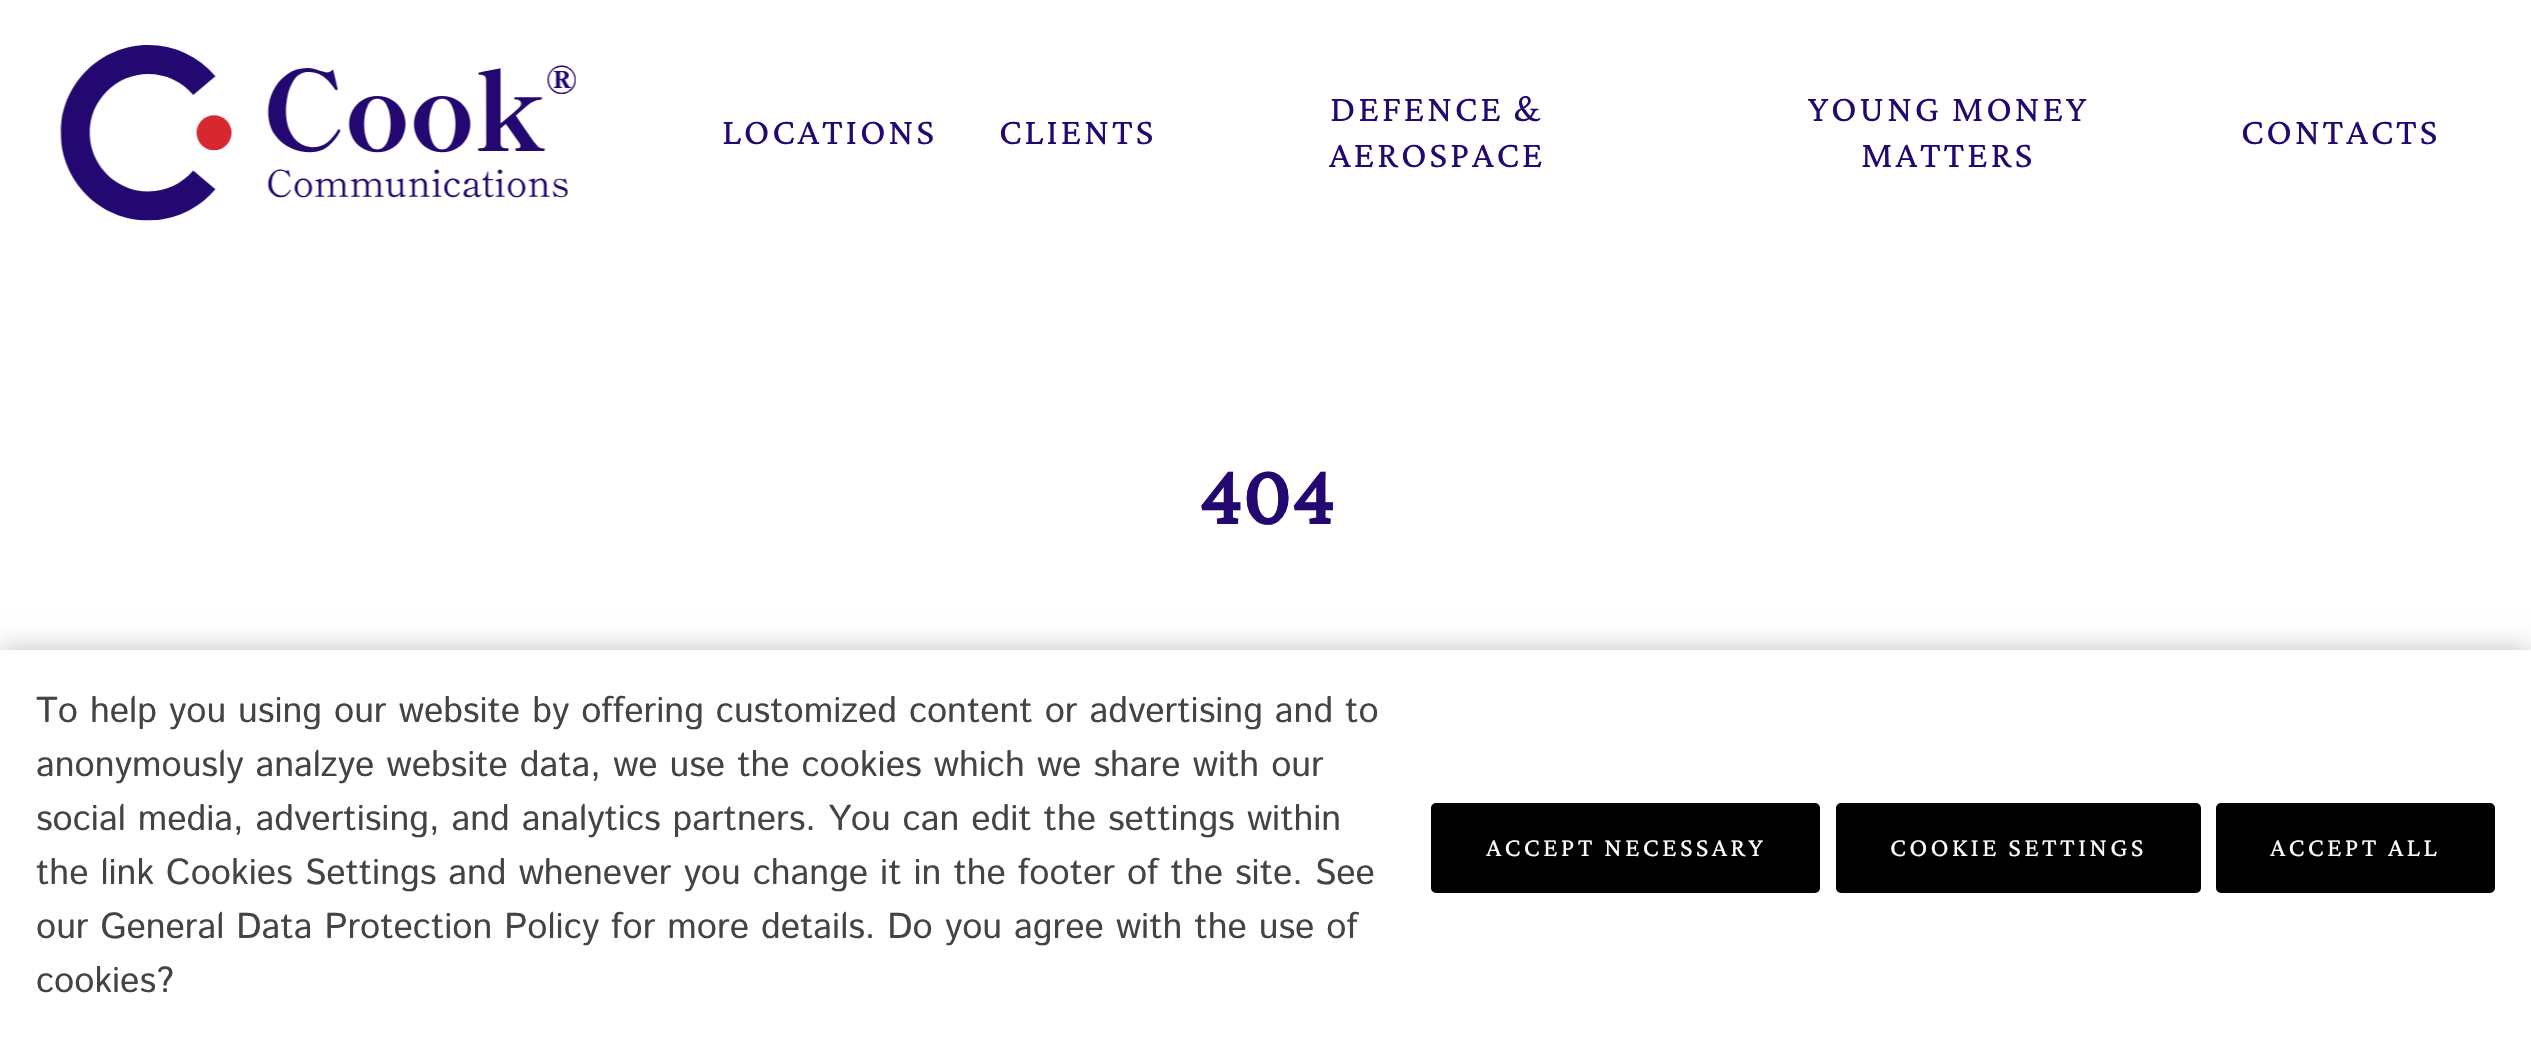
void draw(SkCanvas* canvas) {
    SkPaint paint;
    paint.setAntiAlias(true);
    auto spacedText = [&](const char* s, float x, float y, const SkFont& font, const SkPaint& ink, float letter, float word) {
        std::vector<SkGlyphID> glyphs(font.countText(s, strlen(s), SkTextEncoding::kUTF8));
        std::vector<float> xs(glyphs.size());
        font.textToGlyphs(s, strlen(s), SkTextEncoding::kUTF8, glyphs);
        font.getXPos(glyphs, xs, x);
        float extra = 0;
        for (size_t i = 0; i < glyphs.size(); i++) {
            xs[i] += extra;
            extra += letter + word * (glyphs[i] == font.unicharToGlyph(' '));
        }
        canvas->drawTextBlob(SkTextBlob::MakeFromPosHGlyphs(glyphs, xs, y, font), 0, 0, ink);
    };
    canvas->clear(0xFFFFFFFF);
    canvas->drawImageRect(SkImages::DeferredFromEncodedData(SkData::MakeFromFileName("img1.png")), SkRect::MakeXYWH(60, 45, 516, 176), SkSamplingOptions());
    SkFont font1(fontMgr->matchFamilyStyle("Crimson Pro", SkFontStyle::Normal()), 38.25f);
    font1.setSubpixel(true);
    paint.setColor(0xFF230871);
    spacedText("LOCATIONS", 722, 144, font1, paint, 2.75f, 0);
    spacedText("CLIENTS", 999, 144, font1, paint, 2.75f, 0);
    spacedText("DEFENCE &", 1330, 121, font1, paint, 2.75f, 0);
    spacedText("AEROSPACE", 1329, 167, font1, paint, 2.75f, 0);
    spacedText("YOUNG MONEY", 1808, 121, font1, paint, 2.75f, 0);
    spacedText("MATTERS", 1861, 167, font1, paint, 2.75f, 0);
    spacedText("CONTACTS", 2241, 144, font1, paint, 2.75f, 0);
    SkFont font2(fontMgr->matchFamilyStyle("Crimson Pro", SkFontStyle::Bold()), 86);
    font2.setSubpixel(true);
    canvas->drawString("404", 1198, 524, font2, paint);
    paint.setColor(0x40000000);
    paint.setMaskFilter(SkMaskFilter::MakeBlur(kNormal_SkBlurStyle, 13.5f));
    canvas->drawRect(SkRect::MakeXYWH(0, 650, 2531, 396), paint);
    paint.setMaskFilter(nullptr);
    paint.setColor(0xFFFFFFFF);
    canvas->drawRect(SkRect::MakeXYWH(0, 650, 2531, 395), paint);
    SkFont font3(fontMgr->matchFamilyStyle("Istok Web", SkFontStyle::Normal()), 36);
    font3.setSubpixel(true);
    paint.setColor(0xFF444444);
    canvas->drawString("To help you using our website by offering customized content or advertising and to", 36, 722, font3, paint);
    canvas->drawString("anonymously analzye website data, we use the cookies which we share with our", 36, 776, font3, paint);
    canvas->drawString("social media, advertising, and analytics partners. You can edit the settings within", 36, 830, font3, paint);
    canvas->drawString("the link Cookies Settings and whenever you change it in the footer of the site. See", 36, 884, font3, paint);
    canvas->drawString("our General Data Protection Policy for more details. Do you agree with the use of", 36, 938, font3, paint);
    canvas->drawString("cookies?", 36, 992, font3, paint);
    paint.setColor(0xFF000000);
    canvas->drawRoundRect(SkRect::MakeXYWH(1432, 804, 387, 88), 4, 4, paint);
    paint.setStyle(SkPaint::kStroke_Style);
    paint.setStrokeWidth(2);
    canvas->drawRoundRect(SkRect::MakeXYWH(1432, 804, 387, 88), 4, 4, paint);
    SkFont font4(fontMgr->matchFamilyStyle("Crimson Pro", SkFontStyle::Normal()), 27);
    font4.setSubpixel(true);
    paint.setStyle(SkPaint::kFill_Style);
    paint.setColor(0xFFFFFFFF);
    spacedText("ACCEPT NECESSARY", 1486, 856, font4, paint, 3.25f, 0);
    paint.setColor(0xFF000000);
    canvas->drawRoundRect(SkRect::MakeXYWH(1837, 804, 363, 88), 4, 4, paint);
    paint.setStyle(SkPaint::kStroke_Style);
    canvas->drawRoundRect(SkRect::MakeXYWH(1837, 804, 363, 88), 4, 4, paint);
    paint.setStyle(SkPaint::kFill_Style);
    paint.setColor(0xFFFFFFFF);
    spacedText("COOKIE SETTINGS", 1890, 856, font4, paint, 3.25f, 0);
    paint.setColor(0xFF000000);
    canvas->drawRoundRect(SkRect::MakeXYWH(2217, 804, 277, 88), 4, 4, paint);
    paint.setStyle(SkPaint::kStroke_Style);
    canvas->drawRoundRect(SkRect::MakeXYWH(2217, 804, 277, 88), 4, 4, paint);
    paint.setStyle(SkPaint::kFill_Style);
    paint.setColor(0xFFFFFFFF);
    spacedText("ACCEPT ALL", 2270, 856, font4, paint, 3.25f, 0);
}
